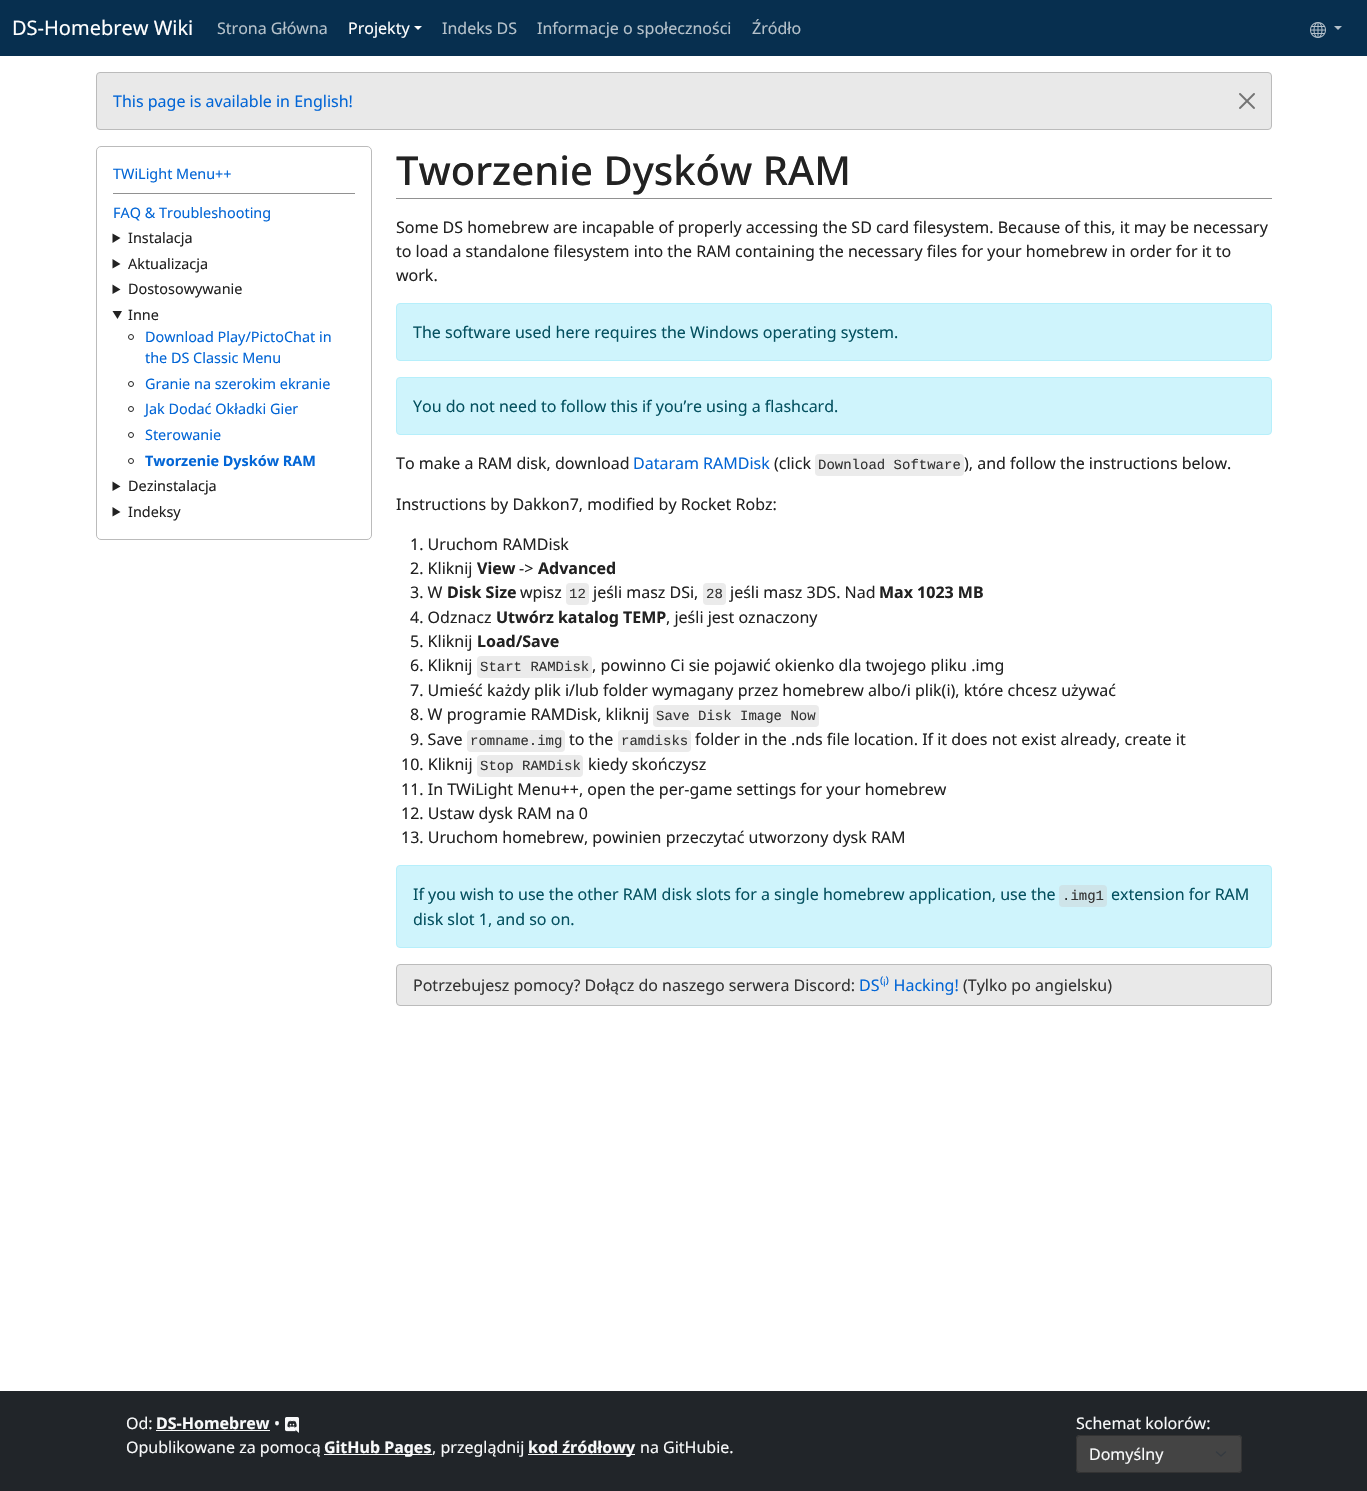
void draw(SkCanvas* canvas) {
    SkPaint paint;
    paint.setAntiAlias(true);
    canvas->clear(0xFFFFFFFF);
    paint.setColor(0xFF072F4F);
    canvas->drawRect(SkRect::MakeXYWH(0, 0, 1367, 56), paint);
    SkFont font1(fontMgr->matchFamilyStyle("Noto Sans", SkFontStyle::Normal()), 20);
    font1.setSubpixel(true);
    paint.setColor(0xFFFFFFFF);
    canvas->drawString("DS-Homebrew Wiki", 12, 35, font1, paint);
    SkFont font2(fontMgr->matchFamilyStyle("Noto Sans", SkFontStyle::Normal()), 16);
    font2.setSubpixel(true);
    paint.setColor(0xFFB5C1CA);
    canvas->drawString("Strona Główna", 217, 34, font2, paint);
    paint.setColor(0xFFFFFFFF);
    canvas->drawString("Projekty", 348, 34, font2, paint);
    canvas->drawPath(SkPathBuilder().moveTo(414, 26).lineTo(422, 26).lineTo(418, 30).close().detach(), paint);
    paint.setColor(0xFFB5C1CA);
    canvas->drawString("Indeks DS", 442, 34, font2, paint);
    canvas->drawString("Informacje o społeczności", 537, 34, font2, paint);
    canvas->drawString("Źródło", 752, 34, font2, paint);
    canvas->drawImageRect(SkImages::DeferredFromEncodedData(SkData::MakeFromFileName("img1.png")), SkRect::MakeXYWH(1310, 22, 16, 16), SkSamplingOptions());
    canvas->drawPath(SkPathBuilder().moveTo(1334, 26).lineTo(1342, 26).lineTo(1338, 30).close().detach(), paint);
    paint.setColor(0xFFE9E9E9);
    canvas->drawRoundRect(SkRect::MakeXYWH(96.5f, 72.5f, 1175, 57), 3.5f, 3.5f, paint);
    paint.setStyle(SkPaint::kStroke_Style);
    paint.setStrokeWidth(1);
    paint.setColor(0xFFBBBBBB);
    canvas->drawRoundRect(SkRect::MakeXYWH(96.5f, 72.5f, 1175, 57), 3.5f, 3.5f, paint);
    paint.setStyle(SkPaint::kFill_Style);
    paint.setColor(0xFF0366D6);
    canvas->drawString("This page is available in English!", 113, 107, font2, paint);
    canvas->drawImageRect(SkImages::DeferredFromEncodedData(SkData::MakeFromFileName("img2.png")), SkRect::MakeXYWH(1239, 93, 16, 16), SkSamplingOptions());
    paint.setStyle(SkPaint::kStroke_Style);
    paint.setColor(0xFFBBBBBB);
    canvas->drawRoundRect(SkRect::MakeXYWH(96.5f, 146.5f, 275, 393), 4.5f, 4.5f, paint);
    SkFont font3(fontMgr->matchFamilyStyle("Noto Sans", SkFontStyle::Normal()), 14.4f);
    font3.setSubpixel(true);
    paint.setStyle(SkPaint::kFill_Style);
    paint.setColor(0xFF0366D6);
    canvas->drawString("TWiLight Menu++", 113, 179, font3, paint);
    paint.setColor(0xFF919191);
    canvas->drawRect(SkRect::MakeXYWH(113, 193, 242, 1), paint);
    paint.setColor(0xFF0366D6);
    canvas->drawString("FAQ & Troubleshooting", 113, 218, font3, paint);
    paint.setColor(0xFF222222);
    canvas->drawPath(SkPathBuilder().moveTo(112.5f, 233.5f).lineTo(120.5f, 238).lineTo(112.5f, 243).close().detach(), paint);
    canvas->drawString("Instalacja", 128, 243, font3, paint);
    canvas->drawPath(SkPathBuilder().moveTo(112.5f, 259).lineTo(120.5f, 264).lineTo(112.5f, 268.5f).close().detach(), paint);
    canvas->drawString("Aktualizacja", 128, 269, font3, paint);
    canvas->drawPath(SkPathBuilder().moveTo(112.5f, 284.5f).lineTo(120.5f, 289.5f).lineTo(112.5f, 294).close().detach(), paint);
    canvas->drawString("Dostosowywanie", 128, 294, font3, paint);
    canvas->drawPath(SkPathBuilder().moveTo(112.5f, 311).lineTo(122, 311).lineTo(117.5f, 319).close().detach(), paint);
    canvas->drawString("Inne", 128, 320, font3, paint);
    paint.setStyle(SkPaint::kStroke_Style);
    canvas->drawCircle(131, 337, 2.5f, paint);
    paint.setStyle(SkPaint::kFill_Style);
    paint.setColor(0xFF0366D6);
    canvas->drawString("Download Play/PictoChat in", 145, 342, font3, paint);
    canvas->drawString("the DS Classic Menu", 145, 363, font3, paint);
    paint.setStyle(SkPaint::kStroke_Style);
    paint.setColor(0xFF222222);
    canvas->drawCircle(131, 384, 2.5f, paint);
    paint.setStyle(SkPaint::kFill_Style);
    paint.setColor(0xFF0366D6);
    canvas->drawString("Granie na szerokim ekranie", 145, 389, font3, paint);
    paint.setStyle(SkPaint::kStroke_Style);
    paint.setColor(0xFF222222);
    canvas->drawCircle(131, 409, 2.5f, paint);
    paint.setStyle(SkPaint::kFill_Style);
    paint.setColor(0xFF0366D6);
    canvas->drawString("Jak Dodać Okładki Gier", 145, 414, font3, paint);
    paint.setStyle(SkPaint::kStroke_Style);
    paint.setColor(0xFF222222);
    canvas->drawCircle(131, 435, 2.5f, paint);
    paint.setStyle(SkPaint::kFill_Style);
    paint.setColor(0xFF0366D6);
    canvas->drawString("Sterowanie", 145, 440, font3, paint);
    paint.setStyle(SkPaint::kStroke_Style);
    paint.setColor(0xFF222222);
    canvas->drawCircle(131, 461, 2.5f, paint);
    SkFont font4(fontMgr->matchFamilyStyle("Noto Sans", SkFontStyle::Bold()), 14.4f);
    font4.setSubpixel(true);
    paint.setStyle(SkPaint::kFill_Style);
    paint.setColor(0xFF0366D6);
    canvas->drawString("Tworzenie Dysków RAM", 145, 466, font4, paint);
    paint.setColor(0xFF222222);
    canvas->drawPath(SkPathBuilder().moveTo(112.5f, 481.5f).lineTo(120.5f, 486.5f).lineTo(112.5f, 491).close().detach(), paint);
    canvas->drawString("Dezinstalacja", 128, 491, font3, paint);
    canvas->drawPath(SkPathBuilder().moveTo(112.5f, 507).lineTo(120.5f, 512).lineTo(112.5f, 516.5f).close().detach(), paint);
    canvas->drawString("Indeksy", 128, 517, font3, paint);
    SkFont font5(fontMgr->matchFamilyStyle("Noto Sans", SkFontStyle(500, SkFontStyle::kNormal_Width, SkFontStyle::kUpright_Slant)), 40);
    font5.setSubpixel(true);
    canvas->drawString("Tworzenie Dysków RAM", 396, 185, font5, paint);
    paint.setColor(0xFF919191);
    canvas->drawRect(SkRect::MakeXYWH(396, 198, 876, 1), paint);
    paint.setColor(0xFF222222);
    canvas->drawString("Some DS homebrew are incapable of properly accessing the SD card filesystem. Because of this, it may be necessary", 396, 233, font2, paint);
    canvas->drawString("to load a standalone filesystem into the RAM containing the necessary files for your homebrew in order for it to", 396, 257, font2, paint);
    canvas->drawString("work.", 396, 281, font2, paint);
    paint.setColor(0xFFCFF4FC);
    canvas->drawRoundRect(SkRect::MakeXYWH(396.5f, 303.5f, 875, 57), 3.5f, 3.5f, paint);
    paint.setStyle(SkPaint::kStroke_Style);
    paint.setColor(0xFFB6EFFB);
    canvas->drawRoundRect(SkRect::MakeXYWH(396.5f, 303.5f, 875, 57), 3.5f, 3.5f, paint);
    paint.setStyle(SkPaint::kFill_Style);
    paint.setColor(0xFF055160);
    canvas->drawString("The software used here requires the Windows operating system.", 413, 338, font2, paint);
    paint.setColor(0xFFCFF4FC);
    canvas->drawRoundRect(SkRect::MakeXYWH(396.5f, 377.5f, 875, 57), 3.5f, 3.5f, paint);
    paint.setStyle(SkPaint::kStroke_Style);
    paint.setColor(0xFFB6EFFB);
    canvas->drawRoundRect(SkRect::MakeXYWH(396.5f, 377.5f, 875, 57), 3.5f, 3.5f, paint);
    paint.setStyle(SkPaint::kFill_Style);
    paint.setColor(0xFF055160);
    canvas->drawString("You do not need to follow this if you’re using a flashcard.", 413, 412, font2, paint);
    paint.setColor(0xFF222222);
    canvas->drawString("To make a RAM disk, download", 396, 469, font2, paint);
    paint.setColor(0xFF0366D6);
    canvas->drawString("Dataram RAMDisk", 633, 469, font2, paint);
    paint.setColor(0xFF222222);
    canvas->drawString("(click", 774, 469, font2, paint);
    paint.setColor(0xFFEBEBEB);
    canvas->drawRoundRect(SkRect::MakeXYWH(815, 454, 149, 22), 4, 4, paint);
    SkFont font6(fontMgr->matchFamilyStyle("Liberation Mono", SkFontStyle::Normal()), 14);
    font6.setSubpixel(true);
    paint.setColor(0xFF333333);
    canvas->drawString("Download Software", 818, 469, font6, paint);
    paint.setColor(0xFF222222);
    canvas->drawString("), and follow the instructions below.", 964, 469, font2, paint);
    canvas->drawString("Instructions by Dakkon7, modified by Rocket Robz:", 396, 510, font2, paint);
    canvas->drawString("1. Uruchom RAMDisk", 410, 550, font2, paint);
    canvas->drawString("2. Kliknij", 410, 574, font2, paint);
    SkFont font7(fontMgr->matchFamilyStyle("Noto Sans", SkFontStyle::Bold()), 16);
    font7.setSubpixel(true);
    canvas->drawString("View", 477, 574, font7, paint);
    canvas->drawString("->", 519, 574, font2, paint);
    canvas->drawString("Advanced", 538, 574, font7, paint);
    canvas->drawString("3. W", 410, 598, font2, paint);
    canvas->drawString("Disk Size", 447, 598, font7, paint);
    canvas->drawString("wpisz", 520, 598, font2, paint);
    paint.setColor(0xFFEBEBEB);
    canvas->drawRoundRect(SkRect::MakeXYWH(566, 583, 23, 22), 4, 4, paint);
    paint.setColor(0xFF333333);
    canvas->drawString("12", 569, 598, font6, paint);
    paint.setColor(0xFF222222);
    canvas->drawString("jeśli masz DSi,", 593, 598, font2, paint);
    paint.setColor(0xFFEBEBEB);
    canvas->drawRoundRect(SkRect::MakeXYWH(703, 583, 23, 22), 4, 4, paint);
    paint.setColor(0xFF333333);
    canvas->drawString("28", 706, 598, font6, paint);
    paint.setColor(0xFF222222);
    canvas->drawString("jeśli masz 3DS. Nad", 730, 598, font2, paint);
    canvas->drawString("Max 1023 MB", 879, 598, font7, paint);
    canvas->drawString("4. Odznacz", 410, 623, font2, paint);
    canvas->drawString("Utwórz katalog TEMP", 496, 623, font7, paint);
    canvas->drawString(", jeśli jest oznaczony", 666, 623, font2, paint);
    canvas->drawString("5. Kliknij", 410, 647, font2, paint);
    canvas->drawString("Load/Save", 477, 647, font7, paint);
    canvas->drawString("6. Kliknij", 410, 671, font2, paint);
    paint.setColor(0xFFEBEBEB);
    canvas->drawRoundRect(SkRect::MakeXYWH(477, 656, 115, 22), 4, 4, paint);
    paint.setColor(0xFF333333);
    canvas->drawString("Start RAMDisk", 480, 671, font6, paint);
    paint.setColor(0xFF222222);
    canvas->drawString(", powinno Ci sie pojawić okienko dla twojego pliku .img", 592, 671, font2, paint);
    canvas->drawString("7. Umieść każdy plik i/lub folder wymagany przez homebrew albo/i plik(i), które chcesz używać", 410, 696, font2, paint);
    canvas->drawString("8. W programie RAMDisk, kliknij", 410, 720, font2, paint);
    paint.setColor(0xFFEBEBEB);
    canvas->drawRoundRect(SkRect::MakeXYWH(653, 705, 166, 22), 4, 4, paint);
    paint.setColor(0xFF333333);
    canvas->drawString("Save Disk Image Now", 656, 720, font6, paint);
    paint.setColor(0xFF222222);
    canvas->drawString("9. Save", 410, 745, font2, paint);
    paint.setColor(0xFFEBEBEB);
    canvas->drawRoundRect(SkRect::MakeXYWH(467, 730, 98, 22), 4, 4, paint);
    paint.setColor(0xFF333333);
    canvas->drawString("romname.img", 470, 745, font6, paint);
    paint.setColor(0xFF222222);
    canvas->drawString("to the", 569, 745, font2, paint);
    paint.setColor(0xFFEBEBEB);
    canvas->drawRoundRect(SkRect::MakeXYWH(618, 730, 73, 22), 4, 4, paint);
    paint.setColor(0xFF333333);
    canvas->drawString("ramdisks", 621, 745, font6, paint);
    paint.setColor(0xFF222222);
    canvas->drawString("folder in the .nds file location. If it does not exist already, create it", 695, 745, font2, paint);
    canvas->drawString("10. Kliknij", 401, 770, font2, paint);
    paint.setColor(0xFFEBEBEB);
    canvas->drawRoundRect(SkRect::MakeXYWH(477, 755, 106, 22), 4, 4, paint);
    paint.setColor(0xFF333333);
    canvas->drawString("Stop RAMDisk", 480, 770, font6, paint);
    paint.setColor(0xFF222222);
    canvas->drawString("kiedy skończysz", 588, 770, font2, paint);
    canvas->drawString("11. In TWiLight Menu++, open the per-game settings for your homebrew", 401, 795, font2, paint);
    canvas->drawString("12. Ustaw dysk RAM na 0", 401, 819, font2, paint);
    canvas->drawString("13. Uruchom homebrew, powinien przeczytać utworzony dysk RAM", 401, 843, font2, paint);
    paint.setColor(0xFFCFF4FC);
    canvas->drawRoundRect(SkRect::MakeXYWH(396.5f, 865.5f, 875, 82), 3.5f, 3.5f, paint);
    paint.setStyle(SkPaint::kStroke_Style);
    paint.setColor(0xFFB6EFFB);
    canvas->drawRoundRect(SkRect::MakeXYWH(396.5f, 865.5f, 875, 82), 3.5f, 3.5f, paint);
    paint.setStyle(SkPaint::kFill_Style);
    paint.setColor(0xFF055160);
    canvas->drawString("If you wish to use the other RAM disk slots for a single homebrew application, use the", 413, 900, font2, paint);
    paint.setColor(0xFFCEE4E9);
    canvas->drawRoundRect(SkRect::MakeXYWH(1059, 885, 48, 22), 4, 4, paint);
    paint.setColor(0xFF333333);
    canvas->drawString(".img1", 1062, 900, font6, paint);
    paint.setColor(0xFF055160);
    canvas->drawString("extension for RAM", 1111, 900, font2, paint);
    canvas->drawString("disk slot 1, and so on.", 413, 925, font2, paint);
    paint.setColor(0xFFE9E9E9);
    canvas->drawRoundRect(SkRect::MakeXYWH(396.5f, 964.5f, 875, 41), 3.5f, 3.5f, paint);
    paint.setStyle(SkPaint::kStroke_Style);
    paint.setColor(0xFFBBBBBB);
    canvas->drawRoundRect(SkRect::MakeXYWH(396.5f, 964.5f, 875, 41), 3.5f, 3.5f, paint);
    paint.setStyle(SkPaint::kFill_Style);
    paint.setColor(0xFF333333);
    canvas->drawString("Potrzebujesz pomocy? Dołącz do naszego serwera Discord:", 413, 991, font2, paint);
    paint.setColor(0xFF0366D6);
    canvas->drawString("DS⁽ⁱ⁾ Hacking!", 859, 991, font2, paint);
    paint.setColor(0xFF333333);
    canvas->drawString("(Tylko po angielsku)", 963, 991, font2, paint);
    paint.setColor(0xFF212529);
    canvas->drawRect(SkRect::MakeXYWH(0, 1391, 1367, 100), paint);
    paint.setColor(0xFFF8F9FA);
    canvas->drawString("Od:", 126, 1429, font2, paint);
    canvas->drawString("DS-Homebrew", 156, 1429, font7, paint);
    canvas->drawRect(SkRect::MakeXYWH(156, 1430, 114, 1), paint);
    canvas->drawString("•", 274, 1429, font2, paint);
    canvas->drawImageRect(SkImages::DeferredFromEncodedData(SkData::MakeFromFileName("img3.png")), SkRect::MakeXYWH(285, 1417, 14, 16), SkSamplingOptions());
    canvas->drawString("Opublikowane za pomocą", 126, 1453, font2, paint);
    canvas->drawRect(SkRect::MakeXYWH(324, 1454, 108, 1), paint);
    canvas->drawString("GitHub Pages", 324, 1453, font7, paint);
    canvas->drawString(", przeglądnij", 432, 1453, font2, paint);
    canvas->drawRect(SkRect::MakeXYWH(528, 1454, 107, 1), paint);
    canvas->drawString("kod źródłowy", 528, 1453, font7, paint);
    canvas->drawString("na GitHubie.", 640, 1453, font2, paint);
    canvas->drawString("Schemat kolorów:", 1076, 1429, font2, paint);
    paint.setColor(0xFF444444);
    canvas->drawRoundRect(SkRect::MakeXYWH(1076, 1435, 166, 38), 4, 4, paint);
    paint.setStyle(SkPaint::kStroke_Style);
    paint.setStrokeWidth(1.5f);
    paint.setStrokeCap(SkPaint::kRound_Cap);
    paint.setStrokeJoin(SkPaint::kRound_Join);
    paint.setColor(0xFF343A40);
    canvas->drawPath(SkPathBuilder().moveTo(1216.5f, 1452).lineTo(1221, 1456).lineTo(1225.5f, 1452).detach(), paint);
    paint.setStrokeWidth(1);
    paint.setStrokeCap(SkPaint::kButt_Cap);
    paint.setStrokeJoin(SkPaint::kMiter_Join);
    paint.setColor(0xFF333333);
    canvas->drawRoundRect(SkRect::MakeXYWH(1076.5f, 1435.5f, 165, 37), 3.5f, 3.5f, paint);
    paint.setStyle(SkPaint::kFill_Style);
    paint.setColor(0xFFF8F9FA);
    canvas->drawString("Domyślny", 1089, 1460, font2, paint);
}
